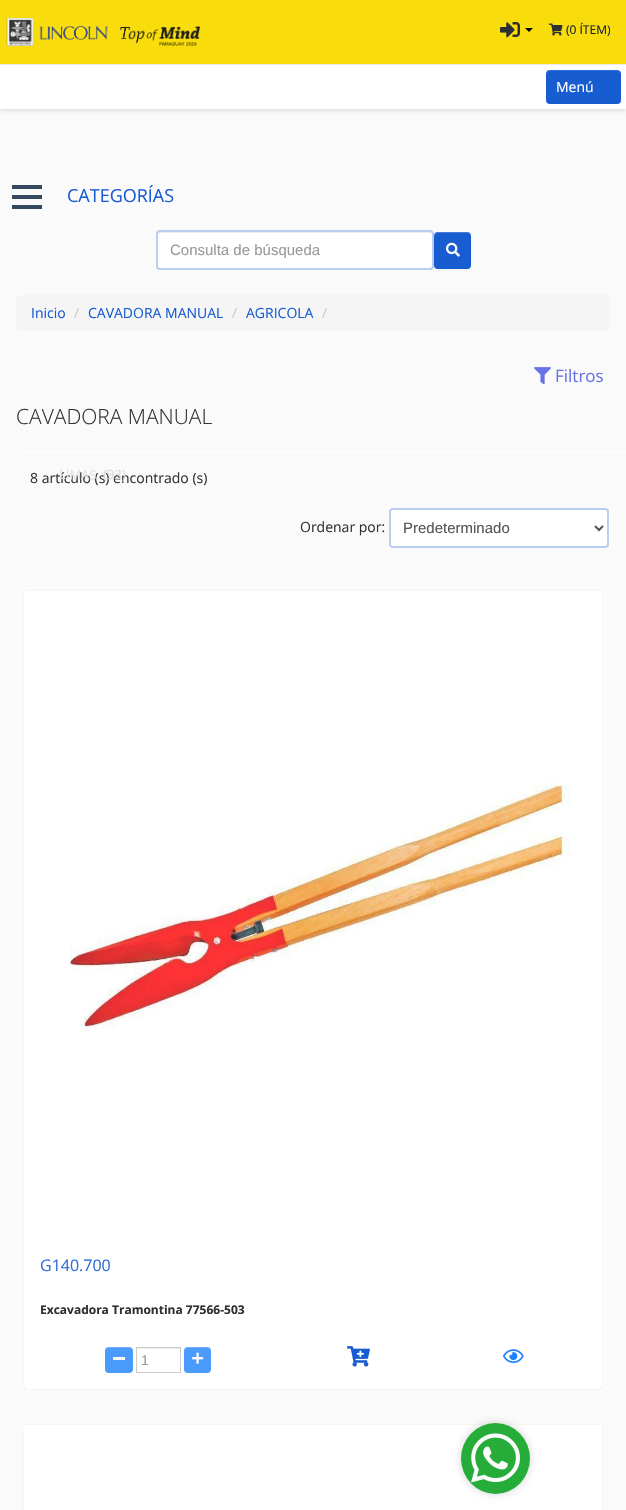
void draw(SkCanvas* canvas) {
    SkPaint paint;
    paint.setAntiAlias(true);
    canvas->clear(0xFFFAFAFA);
    paint.setColor(0xFFF8DC0B);
    canvas->drawRect(SkRect::MakeXYWH(0, 0, 626, 64), paint);
    paint.setColor(0xFFEEEEEE);
    canvas->drawRect(SkRect::MakeXYWH(0, 64, 626, 1), paint);
    canvas->drawImageRect(SkImages::DeferredFromEncodedData(SkData::MakeFromFileName("img1.png")), SkRect::MakeXYWH(6, 18, 194, 28), SkSamplingOptions());
    canvas->drawImageRect(SkImages::DeferredFromEncodedData(SkData::MakeFromFileName("img2.png")), SkRect::MakeXYWH(500, 22, 20, 16), SkSamplingOptions());
    paint.setColor(0xFF000000);
    canvas->drawPath(SkPathBuilder().moveTo(525, 28).lineTo(533, 28).lineTo(529, 32).close().detach(), paint);
    canvas->drawImageRect(SkImages::DeferredFromEncodedData(SkData::MakeFromFileName("img3.png")), SkRect::MakeXYWH(549, 23, 14, 13), SkSamplingOptions());
    SkFont font1(fontMgr->matchFamilyStyle("Open Sans", SkFontStyle::Normal()), 12);
    font1.setSubpixel(true);
    paint.setColor(0xFF1A202C);
    canvas->drawString("(0 ÍTEM)", 566, 34, font1, paint);
    paint.setColor(0x1A000000);
    paint.setMaskFilter(SkMaskFilter::MakeBlur(kNormal_SkBlurStyle, 2));
    canvas->drawRect(SkRect::MakeXYWH(0, 67, 626, 44), paint);
    paint.setMaskFilter(nullptr);
    paint.setColor(0xFFFFFFFF);
    canvas->drawRect(SkRect::MakeXYWH(0, 65, 626, 44), paint);
    paint.setColor(0xFF185CD2);
    canvas->drawRoundRect(SkRect::MakeXYWH(546, 70, 75, 34), 4, 4, paint);
    paint.setColor(0x1AFFFFFF);
    canvas->drawPath(SkPathBuilder().moveTo(550, 71).lineTo(617, 71).cubicTo(619, 71, 621, 73, 621, 75).cubicTo(621, 67, 611, 70, 606, 70).lineTo(561, 70).cubicTo(556, 70, 546, 67, 546, 75).cubicTo(546, 73, 548, 71, 550, 71).close().detach(), paint);
    SkFont font2(fontMgr->matchFamilyStyle("Open Sans", SkFontStyle::Normal()), 14);
    font2.setSubpixel(true);
    paint.setColor(0xFFFFFFFF);
    canvas->drawString("Menú", 556, 92, font2, paint);
    paint.setColor(0xFF34495E);
    canvas->drawRect(SkRect::MakeXYWH(12, 195, 30, 4), paint);
    canvas->drawRect(SkRect::MakeXYWH(12, 185, 30, 4), paint);
    canvas->drawRect(SkRect::MakeXYWH(12, 205, 30, 4), paint);
    SkFont font3(fontMgr->matchFamilyStyle("Open Sans", SkFontStyle::Normal()), 18);
    font3.setSubpixel(true);
    paint.setColor(0xFF185CD2);
    canvas->drawString("CATEGORÍAS", 67, 202, font3, paint);
    paint.setColor(0xFFFFFFFF);
    canvas->drawRoundRect(SkRect::MakeXYWH(156, 230, 278, 40), 4, 4, paint);
    paint.setColor(0xFFECECEC);
    canvas->drawPath(SkPathBuilder().moveTo(160, 233).lineTo(430, 233).cubicTo(431, 233, 432, 234, 432, 235).lineTo(432, 233).lineTo(430, 232).lineTo(160, 232).cubicTo(158, 232, 158, 234, 158, 235).cubicTo(158, 234, 159, 233, 160, 233).close().detach(), paint);
    paint.setStyle(SkPaint::kStroke_Style);
    paint.setStrokeWidth(2);
    paint.setColor(0x4D185CD2);
    canvas->drawRoundRect(SkRect::MakeXYWH(157, 231, 276, 38), 3, 3, paint);
    SkFont font4(fontMgr->matchFamilyStyle("Liberation Sans", SkFontStyle::Normal()), 15);
    font4.setSubpixel(true);
    paint.setStyle(SkPaint::kFill_Style);
    paint.setColor(0xFF999999);
    canvas->drawString("Consulta de búsqueda", 170, 255, font4, paint);
    paint.setColor(0x0D000000);
    paint.setMaskFilter(SkMaskFilter::MakeBlur(kNormal_SkBlurStyle, 1));
    canvas->drawRoundRect(SkRect::MakeXYWH(434, 233, 37, 37), 4, 4, paint);
    paint.setMaskFilter(nullptr);
    paint.setColor(0xFF185CD2);
    canvas->drawRoundRect(SkRect::MakeXYWH(434, 232, 37, 37), 4, 4, paint);
    paint.setColor(0x33FFFFFF);
    canvas->drawPath(SkPathBuilder().moveTo(438, 233).lineTo(467, 233).cubicTo(469, 233, 471, 235, 471, 237).cubicTo(471, 231, 467, 232, 462, 232).lineTo(443, 232).cubicTo(438, 232, 434, 231, 434, 237).cubicTo(434, 235, 436, 233, 438, 233).close().detach(), paint);
    canvas->drawImageRect(SkImages::DeferredFromEncodedData(SkData::MakeFromFileName("img4.png")), SkRect::MakeXYWH(446, 242, 14, 15), SkSamplingOptions());
    paint.setColor(0xFFF5F5F5);
    canvas->drawRoundRect(SkRect::MakeXYWH(16, 295, 594, 36), 4, 4, paint);
    paint.setColor(0xFF185CD2);
    canvas->drawString("Inicio", 31, 318, font2, paint);
    paint.setColor(0xFFCCCCCC);
    canvas->drawString("/", 74, 318, font2, paint);
    paint.setColor(0xFF185CD2);
    canvas->drawString("CAVADORA MANUAL", 88, 318, font2, paint);
    paint.setColor(0xFFCCCCCC);
    canvas->drawString("/", 232, 318, font2, paint);
    paint.setColor(0xFF185CD2);
    canvas->drawString("AGRICOLA", 246, 318, font2, paint);
    paint.setColor(0xFFCCCCCC);
    canvas->drawString("/", 322, 318, font2, paint);
    canvas->drawImageRect(SkImages::DeferredFromEncodedData(SkData::MakeFromFileName("img5.png")), SkRect::MakeXYWH(534, 367, 17, 18), SkSamplingOptions());
    SkFont font5(fontMgr->matchFamilyStyle("Open Sans", SkFontStyle::Normal()), 17);
    font5.setSubpixel(true);
    paint.setColor(0xFF6772E5);
    canvas->drawString("Filtros", 555, 382, font5, paint);
    paint.setColor(0xFF333333);
    canvas->drawString("8 artículo (s) encontrado (s)", 30, 483, font2, paint);
    SkFont font6(fontMgr->matchFamilyStyle("Open Sans", SkFontStyle::Normal()), 13);
    font6.setSubpixel(true);
    paint.setColor(0xFFE3E3E3);
    canvas->save();
    canvas->rotate(1, 59, 479);
    canvas->drawString("LIMAS", 59, 479, font6, paint);
    canvas->restore();
    paint.setColor(0xFFD9D9D9);
    canvas->save();
    canvas->rotate(1, 103, 479);
    canvas->drawString("(93)", 103, 479, font6, paint);
    canvas->restore();
    SkFont font7(fontMgr->matchFamilyStyle("Open Sans", SkFontStyle(300, SkFontStyle::kNormal_Width, SkFontStyle::kUpright_Slant)), 21);
    font7.setSubpixel(true);
    paint.setColor(0xFF333333);
    canvas->drawString("CAVADORA MANUAL", 16, 424, font7, paint);
    paint.setColor(0xFFFFFFFF);
    canvas->drawPath(SkPathBuilder().moveTo(19, 452).lineTo(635, 452).cubicTo(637, 452, 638, 453, 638, 455).lineTo(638, 454).cubicTo(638, 452, 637, 451, 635, 451).lineTo(19, 451).cubicTo(17, 451, 16, 452, 16, 454).lineTo(16, 455).cubicTo(16, 453, 17, 452, 19, 452).close().detach(), paint);
    paint.setColor(0xFF333333);
    canvas->drawString("Ordenar por:", 300, 532, font2, paint);
    paint.setColor(0xFFFFFFFF);
    canvas->drawRoundRect(SkRect::MakeXYWH(390, 509, 218, 38), 3, 3, paint);
    paint.setStyle(SkPaint::kStroke_Style);
    paint.setColor(0xFFBACEF1);
    canvas->drawRoundRect(SkRect::MakeXYWH(390, 509, 218, 38), 3, 3, paint);
    paint.setColor(0xFF555555);
    canvas->drawPath(SkPathBuilder().moveTo(595, 526).lineTo(599, 530).lineTo(603, 526).detach(), paint);
    paint.setStyle(SkPaint::kFill_Style);
    canvas->drawString("Predeterminado", 403, 533, font4, paint);
    paint.setColor(0xFFFFFFFF);
    canvas->drawRect(SkRect::MakeXYWH(16, 583, 594, 814), paint);
    paint.setColor(0xFFFBFBFB);
    canvas->drawRoundRect(SkRect::MakeXYWH(16, 583, 594, 814), 4, 4, paint);
    canvas->save();
    canvas->clipPath(SkPathBuilder(SkPathFillType::kEvenOdd).moveTo(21, 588).lineTo(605, 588).lineTo(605, 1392).lineTo(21, 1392).close().moveTo(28, 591).lineTo(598, 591).cubicTo(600, 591, 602, 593, 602, 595).lineTo(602, 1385).cubicTo(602, 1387, 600, 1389, 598, 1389).lineTo(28, 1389).cubicTo(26, 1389, 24, 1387, 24, 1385).lineTo(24, 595).cubicTo(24, 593, 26, 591, 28, 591).close().detach(), true);
    paint.setColor(0x33000000);
    paint.setMaskFilter(SkMaskFilter::MakeBlur(kNormal_SkBlurStyle, 0.5f));
    canvas->drawRoundRect(SkRect::MakeXYWH(24, 591, 578, 798), 4, 4, paint);
    paint.setMaskFilter(nullptr);
    canvas->restore();
    paint.setColor(0xE6FFFFFF);
    canvas->drawRoundRect(SkRect::MakeXYWH(24, 591, 578, 798), 4, 4, paint);
    canvas->drawImageRect(SkImages::DeferredFromEncodedData(SkData::MakeFromFileName("img6.png")), SkRect::MakeXYWH(24, 591, 578, 438), SkSamplingOptions());
    SkFont font8(fontMgr->matchFamilyStyle("Open Sans", SkFontStyle::Normal()), 16);
    font8.setSubpixel(true);
    paint.setColor(0xFF2F6CD6);
    canvas->drawString("G140.700", 40, 1271, font8, paint);
    SkFont font9(fontMgr->matchFamilyStyle("Open Sans", SkFontStyle::Bold()), 12);
    font9.setSubpixel(true);
    paint.setColor(0xFF2D3032);
    canvas->drawString("Excavadora Tramontina 77566-503", 40, 1314, font9, paint);
    paint.setColor(0xCC1E82FD);
    canvas->drawRoundRect(SkRect::MakeXYWH(105, 1347, 28, 26), 4, 4, paint);
    paint.setColor(0x33FFFFFF);
    canvas->drawPath(SkPathBuilder().moveTo(109, 1348).lineTo(126, 1348).cubicTo(131, 1348, 132.5f, 1349, 133, 1351.5f).cubicTo(133, 1347, 129.5f, 1347, 125.5f, 1347).lineTo(112.5f, 1347).cubicTo(108.5f, 1347, 105, 1347, 105, 1351.5f).cubicTo(105.5f, 1349.5f, 106.5f, 1348, 109, 1348).close().detach(), paint);
    paint.setColor(0xFFFAFAFA);
    canvas->drawRect(SkRect::MakeXYWH(113, 1357, 12, 3), paint);
    paint.setColor(0xFFECECEC);
    canvas->drawRect(SkRect::MakeXYWH(137, 1348, 43, 1), paint);
    paint.setStyle(SkPaint::kStroke_Style);
    paint.setStrokeWidth(1);
    paint.setColor(0xFFCCCCCC);
    canvas->drawRect(SkRect::MakeXYWH(136.5f, 1347.5f, 44, 25), paint);
    SkFont font10(fontMgr->matchFamilyStyle("Liberation Sans", SkFontStyle::Normal()), 14);
    font10.setSubpixel(true);
    paint.setStyle(SkPaint::kFill_Style);
    paint.setColor(0xFF999999);
    canvas->drawString("1", 141, 1365, font10, paint);
    paint.setColor(0xCC1E82FD);
    canvas->drawRoundRect(SkRect::MakeXYWH(184, 1347, 27, 26), 4, 4, paint);
    paint.setColor(0x33FFFFFF);
    canvas->drawPath(SkPathBuilder().moveTo(188, 1348).lineTo(204, 1348).cubicTo(209, 1348, 210.5f, 1349, 211, 1351.5f).cubicTo(211, 1347, 207.5f, 1347, 204, 1347).lineTo(191, 1347).cubicTo(187, 1347, 184, 1347, 184, 1351.5f).cubicTo(184.5f, 1349.5f, 185.5f, 1348, 188, 1348).close().detach(), paint);
    canvas->drawImageRect(SkImages::DeferredFromEncodedData(SkData::MakeFromFileName("img7.png")), SkRect::MakeXYWH(192, 1352, 12, 12), SkSamplingOptions());
    canvas->drawImageRect(SkImages::DeferredFromEncodedData(SkData::MakeFromFileName("img8.png")), SkRect::MakeXYWH(347, 1346, 23, 21), SkSamplingOptions());
    canvas->drawImageRect(SkImages::DeferredFromEncodedData(SkData::MakeFromFileName("img9.png")), SkRect::MakeXYWH(503, 1349, 21, 14), SkSamplingOptions());
    paint.setColor(0xFFFFFFFF);
    canvas->drawRect(SkRect::MakeXYWH(16, 1417, 594, 4), paint);
    paint.setColor(0xFFFAFAFA);
    canvas->drawRoundRect(SkRect::MakeXYWH(16, 1417, 594, 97), 4, 4, paint);
    canvas->save();
    canvas->clipPath(SkPathBuilder(SkPathFillType::kEvenOdd).moveTo(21, 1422).lineTo(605, 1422).lineTo(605, 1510).lineTo(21, 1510).close().moveTo(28, 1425).lineTo(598, 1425).cubicTo(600, 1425, 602, 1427, 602, 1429).lineTo(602, 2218).cubicTo(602, 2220, 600, 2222, 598, 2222).lineTo(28, 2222).cubicTo(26, 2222, 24, 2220, 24, 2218).lineTo(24, 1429).cubicTo(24, 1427, 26, 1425, 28, 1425).close().detach(), true);
    paint.setColor(0x33000000);
    paint.setMaskFilter(SkMaskFilter::MakeBlur(kNormal_SkBlurStyle, 0.5f));
    canvas->drawRoundRect(SkRect::MakeXYWH(24, 1425, 578, 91), 4, 4, paint);
    paint.setMaskFilter(nullptr);
    canvas->restore();
    paint.setColor(0xE6FFFFFF);
    canvas->drawRect(SkRect::MakeXYWH(24, 1428, 578, 82), paint);
    paint.setColor(0xFFFFFFFF);
    canvas->drawRect(SkRect::MakeXYWH(24, 1425, 578, 3), paint);
    paint.setColor(0x332D3032);
    paint.setMaskFilter(SkMaskFilter::MakeBlur(kNormal_SkBlurStyle, 5));
    canvas->drawRoundRect(SkRect::MakeXYWH(461, 1423, 69, 71), 34.5f, 34.5f, paint);
    paint.setMaskFilter(nullptr);
    paint.setColor(0xFF26AD39);
    canvas->drawOval(SkRect::MakeXYWH(461, 1423, 69, 71), paint);
    canvas->drawImageRect(SkImages::DeferredFromEncodedData(SkData::MakeFromFileName("img10.png")), SkRect::MakeXYWH(471, 1433, 49, 50), SkSamplingOptions());
}
